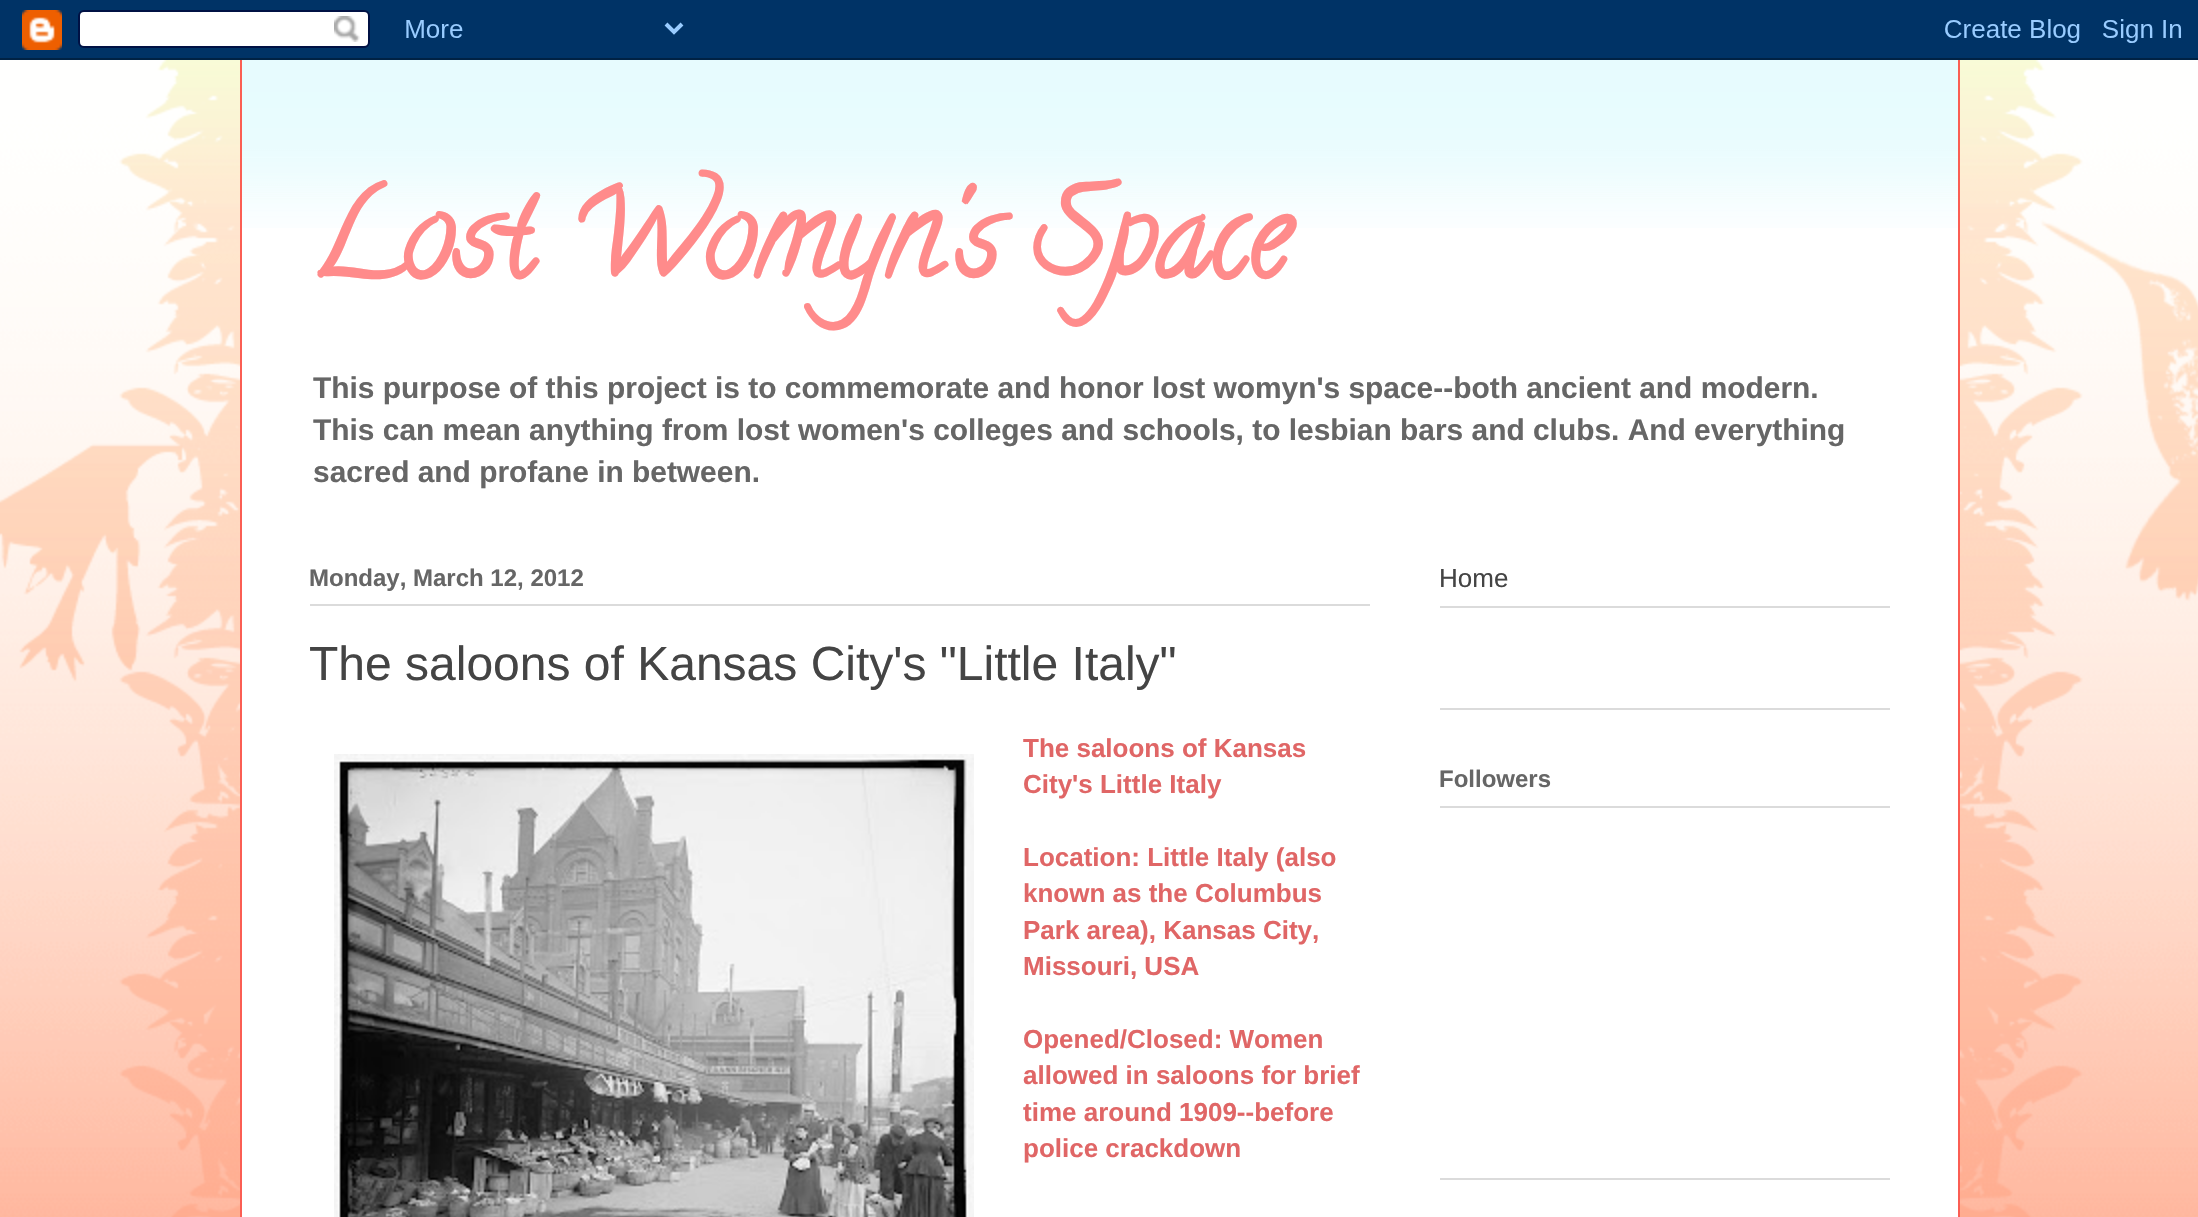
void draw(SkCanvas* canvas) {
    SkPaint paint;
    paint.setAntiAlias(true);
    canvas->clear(0xFFFFFFFF);
    canvas->drawImageRect(SkImages::DeferredFromEncodedData(SkData::MakeFromFileName("img1.png")), SkRect::MakeXYWH(0, 60, 2198, 1157), SkSamplingOptions());
    canvas->drawImageRect(SkImages::DeferredFromEncodedData(SkData::MakeFromFileName("img2.png")), SkRect::MakeXYWH(0, 0, 2198, 60), SkSamplingOptions());
    canvas->drawImageRect(SkImages::DeferredFromEncodedData(SkData::MakeFromFileName("img3.png")), SkRect::MakeXYWH(0, 60, 240, 1157), SkSamplingOptions());
    paint.setColor(0xFFFFFFFF);
    canvas->drawRect(SkRect::MakeXYWH(242, 60, 1716, 1157), paint);
    canvas->drawImageRect(SkImages::DeferredFromEncodedData(SkData::MakeFromFileName("img4.png")), SkRect::MakeXYWH(242, 60, 1716, 168), SkSamplingOptions());
    paint.setColor(0xFFFB5E53);
    canvas->drawRect(SkRect::MakeXYWH(1958, 60, 2, 1157), paint);
    canvas->drawRect(SkRect::MakeXYWH(240, 60, 2, 1157), paint);
    canvas->drawImageRect(SkImages::DeferredFromEncodedData(SkData::MakeFromFileName("img5.png")), SkRect::MakeXYWH(1960, 60, 238, 1157), SkSamplingOptions());
    SkFont font1(fontMgr->matchFamilyStyle("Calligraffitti", SkFontStyle::Bold()), 120);
    font1.setSubpixel(true);
    paint.setColor(0xFFFF8B8B);
    canvas->drawString("Lost Womyn's Space", 309, 274, font1, paint);
    SkFont font2(fontMgr->matchFamilyStyle("Liberation Sans", SkFontStyle::Bold()), 29.9f);
    font2.setSubpixel(true);
    paint.setColor(0xFF666666);
    canvas->drawString("This purpose of this project is to commemorate and honor lost womyn's space--both ancient and modern.", 313, 398, font2, paint);
    canvas->drawString("This can mean anything from lost women's colleges and schools, to lesbian bars and clubs. And everything", 313, 440, font2, paint);
    canvas->drawString("sacred and profane in between.", 313, 482, font2, paint);
    paint.setColor(0xFFDBDBDB);
    canvas->drawRect(SkRect::MakeXYWH(310, 604, 1060, 2), paint);
    SkFont font3(fontMgr->matchFamilyStyle("Liberation Sans", SkFontStyle::Bold()), 24);
    font3.setSubpixel(true);
    paint.setColor(0xFF666666);
    canvas->drawString("Monday, March 12, 2012", 309, 586, font3, paint);
    SkFont font4(fontMgr->matchFamilyStyle("Liberation Sans", SkFontStyle::Normal()), 48);
    font4.setSubpixel(true);
    paint.setColor(0xFF444444);
    canvas->drawString("The saloons of Kansas City's \"Little Italy\"", 309, 680, font4, paint);
    SkFont font5(fontMgr->matchFamilyStyle("Liberation Sans", SkFontStyle::Bold()), 26);
    font5.setSubpixel(true);
    paint.setColor(0xFFE06666);
    canvas->drawString("The saloons of Kansas", 1023, 757, font5, paint);
    canvas->drawImageRect(SkImages::DeferredFromEncodedData(SkData::MakeFromFileName("img6.png")), SkRect::MakeXYWH(334, 754, 640, 463), SkSamplingOptions());
    canvas->drawString("City's Little Italy", 1023, 793, font5, paint);
    canvas->drawString("Location: Little Italy (also", 1023, 866, font5, paint);
    canvas->drawString("known as the Columbus", 1023, 902, font5, paint);
    canvas->drawString("Park area), Kansas City,", 1023, 939, font5, paint);
    canvas->drawString("Missouri, USA", 1023, 975, font5, paint);
    canvas->drawString("Opened/Closed: Women", 1023, 1048, font5, paint);
    canvas->drawString("allowed in saloons for brief", 1023, 1084, font5, paint);
    canvas->drawString("time around 1909--before", 1023, 1121, font5, paint);
    canvas->drawString("police crackdown", 1023, 1157, font5, paint);
    paint.setColor(0xFFDBDBDB);
    canvas->drawRect(SkRect::MakeXYWH(1440, 606, 450, 2), paint);
    SkFont font6(fontMgr->matchFamilyStyle("Liberation Sans", SkFontStyle::Normal()), 26);
    font6.setSubpixel(true);
    paint.setColor(0xFF444444);
    canvas->drawString("Home", 1439, 587, font6, paint);
    paint.setColor(0xFFDBDBDB);
    canvas->drawRect(SkRect::MakeXYWH(1440, 708, 450, 2), paint);
    canvas->drawRect(SkRect::MakeXYWH(1440, 1178, 450, 2), paint);
    canvas->drawRect(SkRect::MakeXYWH(1440, 806, 450, 2), paint);
    paint.setColor(0xFF666666);
    canvas->drawString("Followers", 1439, 787, font3, paint);
}
